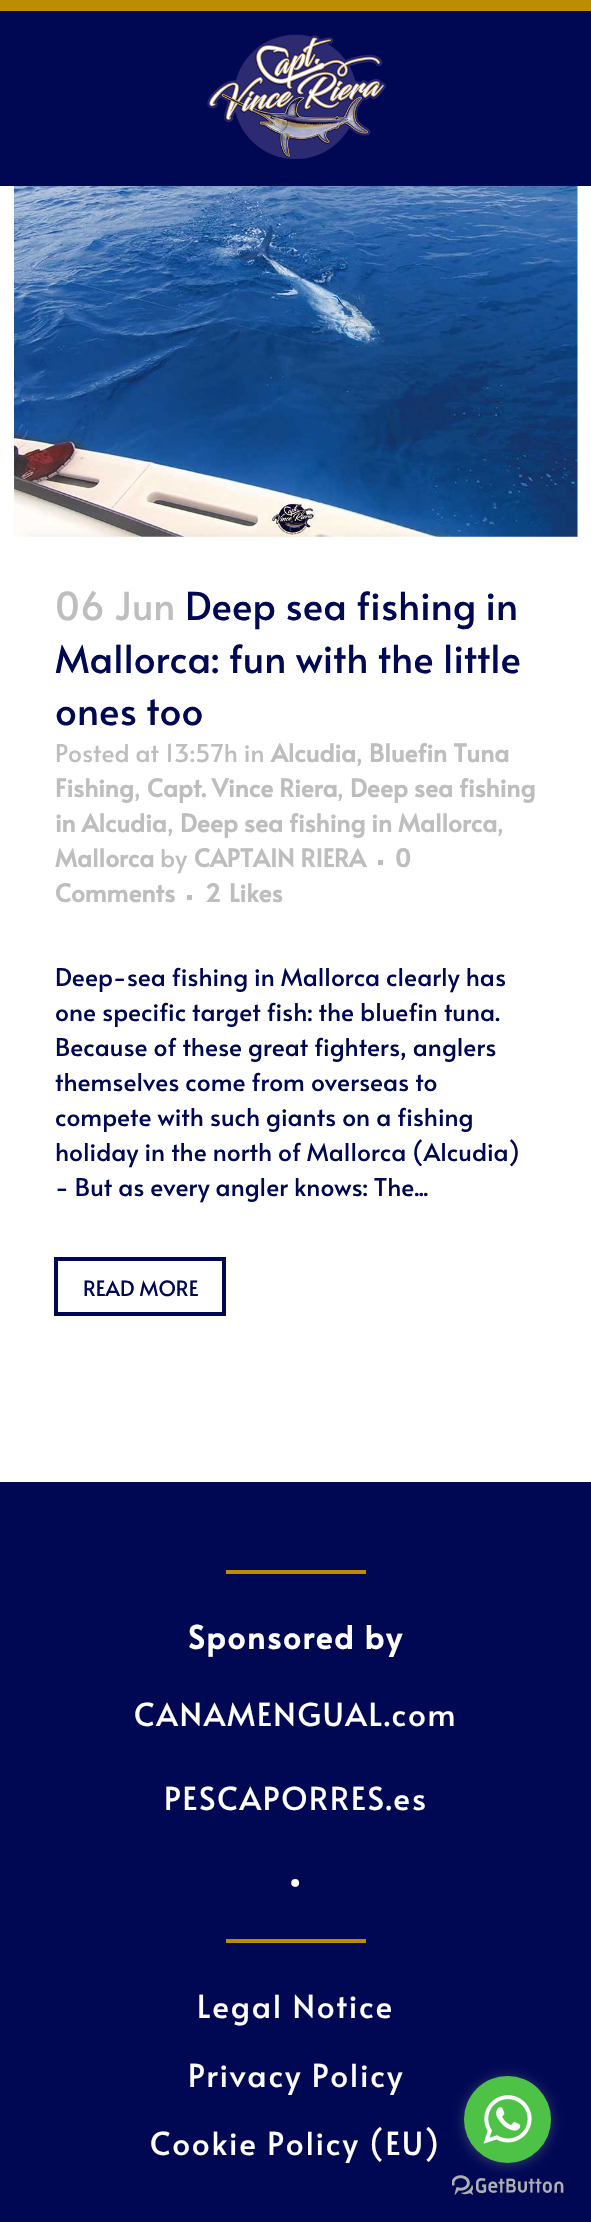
void draw(SkCanvas* canvas) {
    SkPaint paint;
    paint.setAntiAlias(true);
    auto spacedText = [&](const char* s, float x, float y, const SkFont& font, const SkPaint& ink, float letter, float word) {
        std::vector<SkGlyphID> glyphs(font.countText(s, strlen(s), SkTextEncoding::kUTF8));
        std::vector<float> xs(glyphs.size());
        font.textToGlyphs(s, strlen(s), SkTextEncoding::kUTF8, glyphs);
        font.getXPos(glyphs, xs, x);
        float extra = 0;
        for (size_t i = 0; i < glyphs.size(); i++) {
            xs[i] += extra;
            extra += letter + word * (glyphs[i] == font.unicharToGlyph(' '));
        }
        canvas->drawTextBlob(SkTextBlob::MakeFromPosHGlyphs(glyphs, xs, y, font), 0, 0, ink);
    };
    canvas->clear(0xFFFFFFFF);
    paint.setColor(0xFFBC8D00);
    canvas->drawRect(SkRect::MakeXYWH(0, 0, 591, 11), paint);
    paint.setColor(0xFF000854);
    canvas->drawRect(SkRect::MakeXYWH(0, 11, 591, 175), paint);
    canvas->drawImageRect(SkImages::DeferredFromEncodedData(SkData::MakeFromFileName("img1.png")), SkRect::MakeXYWH(207, 34, 179, 125), SkSamplingOptions());
    canvas->drawImageRect(SkImages::DeferredFromEncodedData(SkData::MakeFromFileName("img2.png")), SkRect::MakeXYWH(14, 186, 564, 351), SkSamplingOptions());
    SkFont font1(fontMgr->matchFamilyStyle("Alata", SkFontStyle::Normal()), 38.5f);
    font1.setSubpixel(true);
    paint.setColor(0xFFBEBEBE);
    canvas->drawString("06 Jun", 55, 620, font1, paint);
    paint.setColor(0xFF000854);
    canvas->drawString("Deep sea fishing in", 185, 620, font1, paint);
    canvas->drawString("Mallorca: fun with the little", 55, 673, font1, paint);
    canvas->drawString("ones too", 55, 725, font1, paint);
    SkFont font2(fontMgr->matchFamilyStyle("Alata", SkFontStyle::Normal()), 24.5f);
    font2.setSubpixel(true);
    paint.setColor(0xFFBEBEBE);
    canvas->drawString("Posted at 13:57h in", 55, 762, font2, paint);
    SkFont font3(fontMgr->matchFamilyStyle("Alata", SkFontStyle::Bold()), 24.5f);
    font3.setSubpixel(true);
    canvas->drawString("Alcudia", 271, 762, font3, paint);
    canvas->drawString(",", 356, 762, font2, paint);
    canvas->drawString("Bluefin Tuna", 369, 762, font3, paint);
    canvas->drawString("Fishing", 55, 797, font3, paint);
    canvas->drawString(",", 134, 797, font2, paint);
    canvas->drawString("Capt. Vince Riera", 147, 797, font3, paint);
    canvas->drawString(",", 337, 797, font2, paint);
    canvas->drawString("Deep sea fishing", 350, 797, font3, paint);
    canvas->drawString("in Alcudia", 55, 832, font3, paint);
    canvas->drawString(",", 167, 832, font2, paint);
    canvas->drawString("Deep sea fishing in Mallorca", 180, 832, font3, paint);
    canvas->drawString(",", 497, 832, font2, paint);
    canvas->drawString("Mallorca", 55, 867, font3, paint);
    canvas->drawString("by", 160, 867, font2, paint);
    canvas->drawString("CAPTAIN RIERA", 194, 867, font3, paint);
    canvas->drawRect(SkRect::MakeXYWH(378, 860, 5, 5), paint);
    canvas->drawString("0", 395, 867, font3, paint);
    canvas->drawString("Comments", 55, 902, font3, paint);
    canvas->drawRect(SkRect::MakeXYWH(187, 895, 5, 5), paint);
    canvas->drawString("2", 205, 902, font3, paint);
    canvas->drawString("Likes", 229, 902, font3, paint);
    paint.setColor(0xFF000854);
    canvas->drawString("Deep-sea fishing in Mallorca clearly has", 55, 986, font2, paint);
    canvas->drawString("one specific target fish: the bluefin tuna.", 55, 1021, font2, paint);
    canvas->drawString("Because of these great fighters, anglers", 55, 1056, font2, paint);
    canvas->drawString("themselves come from overseas to", 55, 1091, font2, paint);
    canvas->drawString("compete with such giants on a fishing", 55, 1126, font2, paint);
    canvas->drawString("holiday in the north of Mallorca (Alcudia)", 55, 1161, font2, paint);
    canvas->drawString("- But as every angler knows: The...", 55, 1196, font2, paint);
    paint.setStyle(SkPaint::kStroke_Style);
    paint.setStrokeWidth(4);
    canvas->drawRect(SkRect::MakeXYWH(56, 1259, 168, 55), paint);
    SkFont font4(fontMgr->matchFamilyStyle("Alata", SkFontStyle::Normal()), 21);
    font4.setSubpixel(true);
    paint.setStyle(SkPaint::kFill_Style);
    canvas->drawString("READ MORE", 83, 1296, font4, paint);
    canvas->drawRect(SkRect::MakeXYWH(0, 1482, 591, 740), paint);
    paint.setColor(0xFFBC8D00);
    canvas->drawRect(SkRect::MakeXYWH(226, 1570, 140, 4), paint);
    SkFont font5(fontMgr->matchFamilyStyle("Alata", SkFontStyle::Bold()), 31.5f);
    font5.setSubpixel(true);
    paint.setColor(0xFFFFFFFF);
    spacedText("Sponsored by", 188, 1649, font5, paint, 1.75f, 0);
    SkFont font6(fontMgr->matchFamilyStyle("Alata", SkFontStyle::Normal()), 31.5f);
    font6.setSubpixel(true);
    spacedText("CANAMENGUAL.com", 134, 1726, font6, paint, 1.75f, 0);
    spacedText("PESCAPORRES.es", 164, 1810, font6, paint, 1.75f, 0);
    spacedText("•", 286, 1894, font5, paint, 1.75f, 0);
    paint.setColor(0xFFBC8D00);
    canvas->drawRect(SkRect::MakeXYWH(226, 1939, 140, 4), paint);
    paint.setColor(0xFFFFFFFF);
    spacedText("Legal Notice", 197, 2018, font6, paint, 1.75f, 0);
    spacedText("Privacy Policy", 188, 2087, font6, paint, 1.75f, 0);
    spacedText("Cookie Policy (EU)", 150, 2155, font6, paint, 1.75f, 0);
    canvas->drawImageRect(SkImages::DeferredFromEncodedData(SkData::MakeFromFileName("img4.png")), SkRect::MakeXYWH(452, 2175, 112, 20), SkSamplingOptions());
    paint.setColor(0x66888888);
    paint.setMaskFilter(SkMaskFilter::MakeBlur(kNormal_SkBlurStyle, 6));
    canvas->drawRoundRect(SkRect::MakeXYWH(464, 2077, 87, 88), 43.5f, 43.5f, paint);
    paint.setMaskFilter(nullptr);
    paint.setColor(0xFF4DC247);
    canvas->drawCircle(507.5f, 2119.5f, 43.5f, paint);
    canvas->drawImageRect(SkImages::DeferredFromEncodedData(SkData::MakeFromFileName("img3.png")), SkRect::MakeXYWH(483, 2095, 49, 49), SkSamplingOptions());
}
